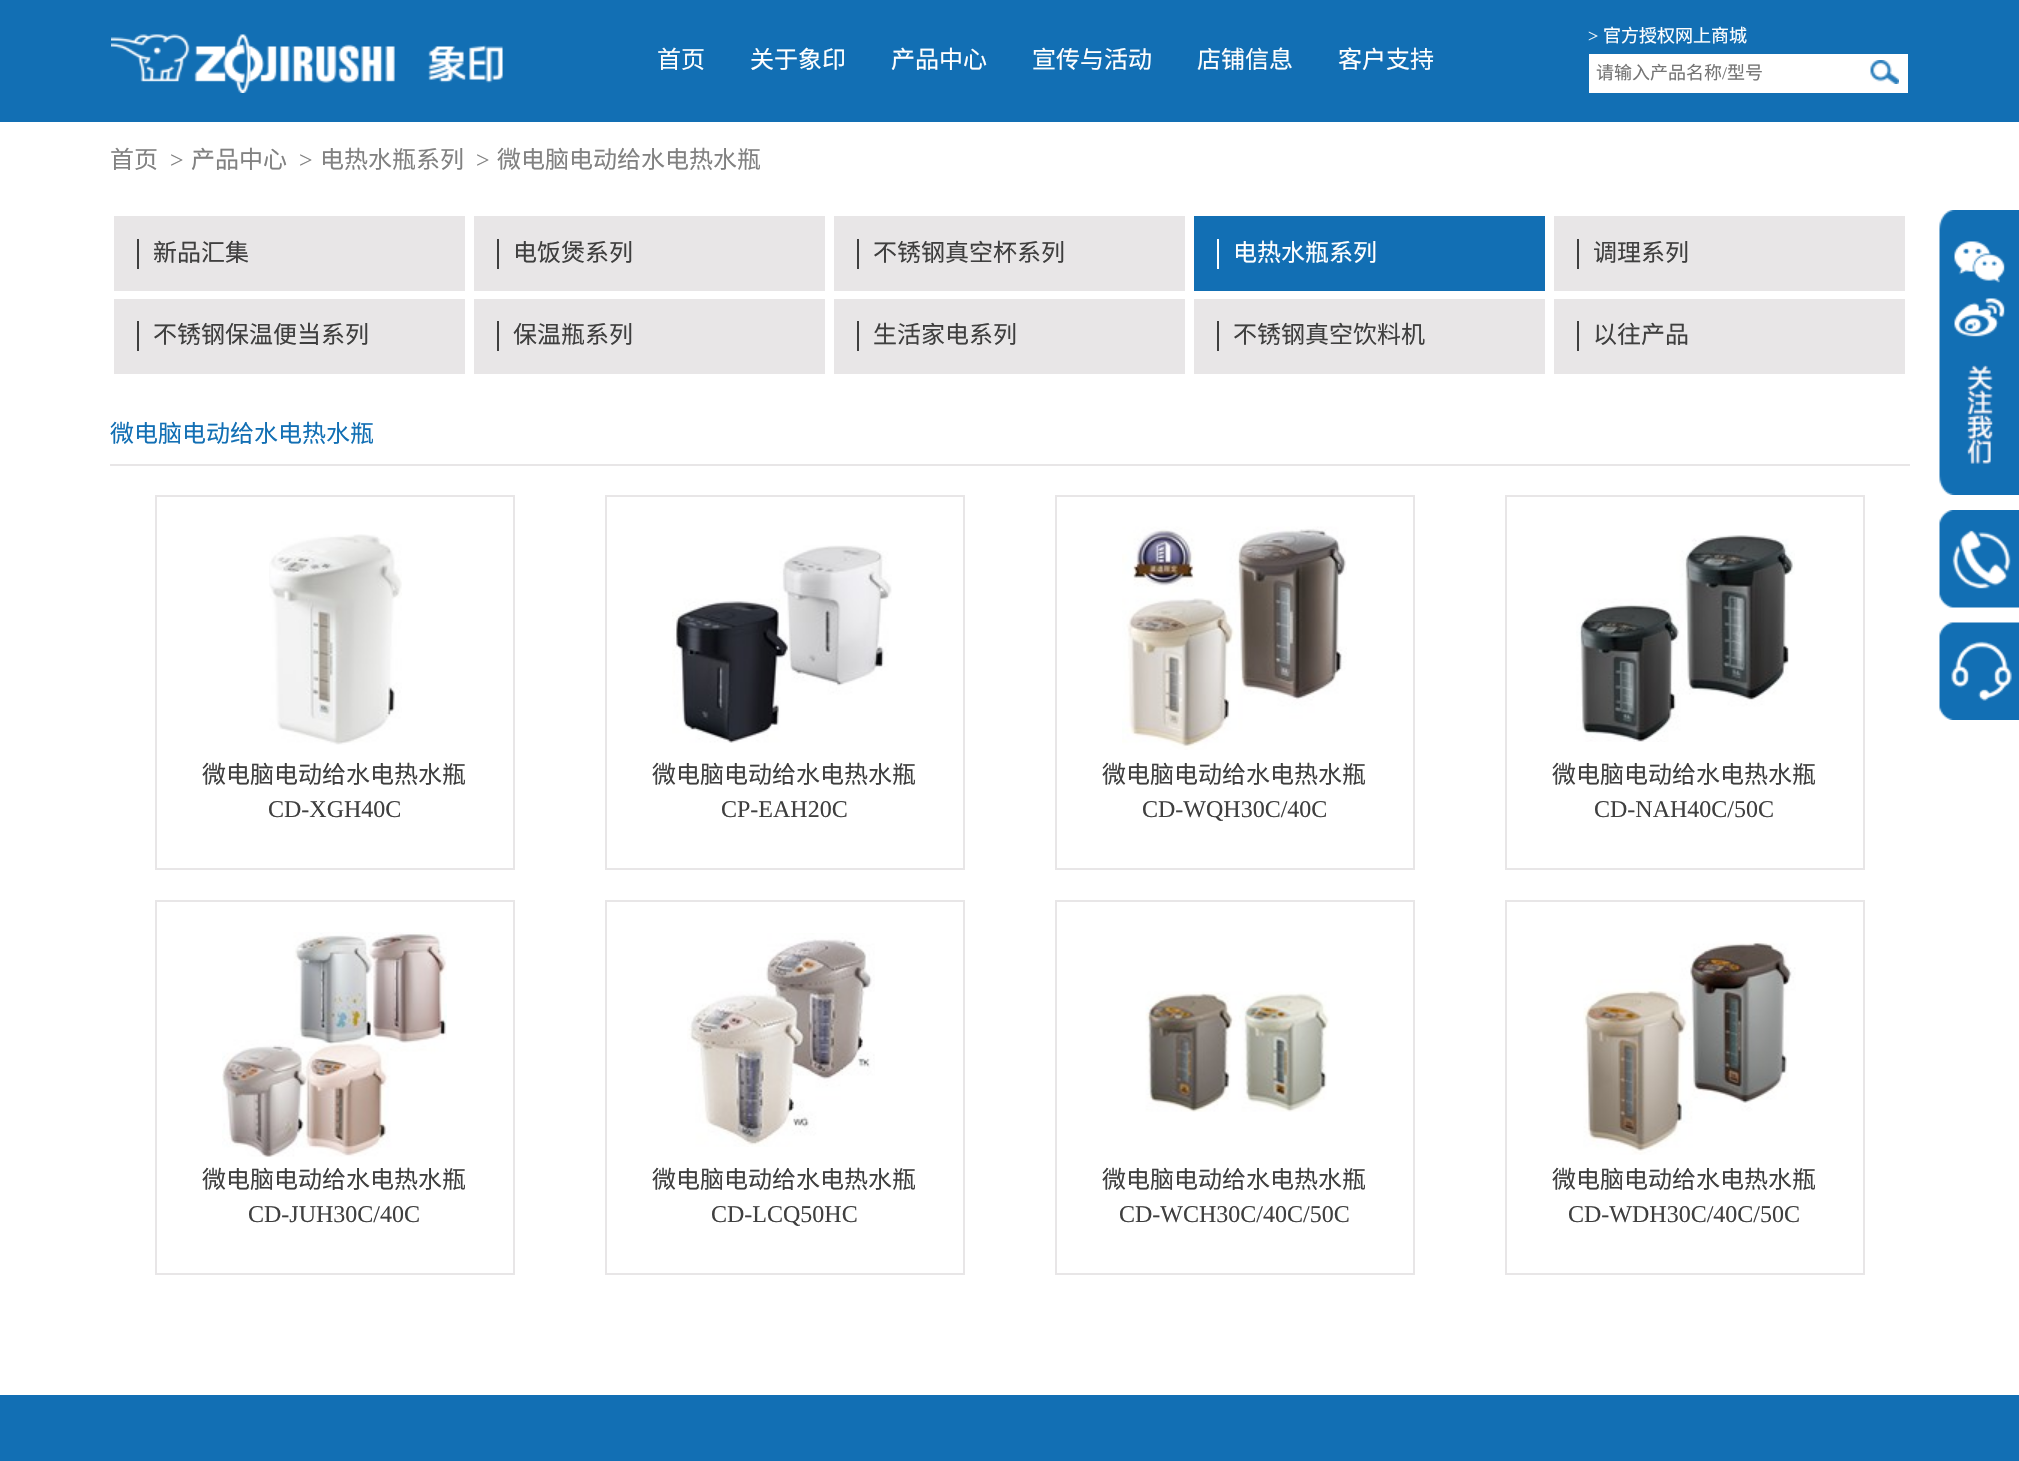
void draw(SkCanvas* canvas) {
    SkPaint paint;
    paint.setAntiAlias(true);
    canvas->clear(0xFFFFFFFF);
    paint.setColor(0xFF126FB4);
    canvas->drawRect(SkRect::MakeXYWH(0, 0, 2019, 122), paint);
    canvas->drawImageRect(SkImages::DeferredFromEncodedData(SkData::MakeFromFileName("img1.png")), SkRect::MakeXYWH(111, 34, 392, 59), SkSamplingOptions());
    SkFont font1(fontMgr->matchFamilyStyle("Noto Sans CJK SC", SkFontStyle::Normal()), 24);
    font1.setSubpixel(true);
    paint.setColor(0xFFFFFFFF);
    canvas->drawString("首页", 657, 68, font1, paint);
    canvas->drawString("关于象印", 750, 68, font1, paint);
    canvas->drawString("产品中心", 891, 68, font1, paint);
    canvas->drawString("宣传与活动", 1032, 68, font1, paint);
    canvas->drawString("店铺信息", 1197, 68, font1, paint);
    canvas->drawString("客户支持", 1338, 68, font1, paint);
    SkFont font2(fontMgr->matchFamilyStyle("Liberation Serif", SkFontStyle::Normal()), 18);
    font2.setSubpixel(true);
    canvas->drawString(">", 1588, 42, font2, paint);
    SkFont font3(fontMgr->matchFamilyStyle("Noto Sans CJK SC", SkFontStyle::Normal()), 18);
    font3.setSubpixel(true);
    canvas->drawString("官方授权网上商城", 1603, 42, font3, paint);
    canvas->drawRect(SkRect::MakeXYWH(1589, 54, 319, 39), paint);
    paint.setColor(0xFF757575);
    canvas->drawString("请输入产品名称", 1596, 79, font3, paint);
    canvas->drawString("/", 1722, 79, font2, paint);
    canvas->drawString("型号", 1727, 79, font3, paint);
    canvas->drawImageRect(SkImages::DeferredFromEncodedData(SkData::MakeFromFileName("img2.png")), SkRect::MakeXYWH(1870, 60, 29, 24), SkSamplingOptions());
    canvas->drawImageRect(SkImages::DeferredFromEncodedData(SkData::MakeFromFileName("img3.png")), SkRect::MakeXYWH(1939, 210, 80, 285), SkSamplingOptions());
    canvas->drawImageRect(SkImages::DeferredFromEncodedData(SkData::MakeFromFileName("img4.png")), SkRect::MakeXYWH(1939, 510, 80, 98), SkSamplingOptions());
    canvas->drawImageRect(SkImages::DeferredFromEncodedData(SkData::MakeFromFileName("img5.png")), SkRect::MakeXYWH(1939, 622, 80, 98), SkSamplingOptions());
    paint.setColor(0xFF818181);
    canvas->drawString("首页", 110, 168, font1, paint);
    SkFont font4(fontMgr->matchFamilyStyle("Liberation Serif", SkFontStyle::Normal()), 24);
    font4.setSubpixel(true);
    canvas->drawString(">", 170, 168, font4, paint);
    canvas->drawString("产品中心", 191, 168, font1, paint);
    canvas->drawString(">", 299, 168, font4, paint);
    canvas->drawString("电热水瓶系列", 320, 168, font1, paint);
    canvas->drawString(">", 476, 168, font4, paint);
    canvas->drawString("微电脑电动给水电热水瓶", 497, 168, font1, paint);
    paint.setColor(0xFFE8E6E7);
    canvas->drawRect(SkRect::MakeXYWH(114, 216, 351, 75), paint);
    paint.setColor(0xFF3F3F3F);
    canvas->drawRect(SkRect::MakeXYWH(137, 239, 2, 30), paint);
    canvas->drawString("新品汇集", 153, 261, font1, paint);
    paint.setColor(0xFFE8E6E7);
    canvas->drawRect(SkRect::MakeXYWH(474, 216, 351, 75), paint);
    paint.setColor(0xFF3F3F3F);
    canvas->drawRect(SkRect::MakeXYWH(497, 239, 2, 30), paint);
    canvas->drawString("电饭煲系列", 513, 261, font1, paint);
    paint.setColor(0xFFE8E6E7);
    canvas->drawRect(SkRect::MakeXYWH(834, 216, 351, 75), paint);
    paint.setColor(0xFF3F3F3F);
    canvas->drawRect(SkRect::MakeXYWH(857, 239, 2, 30), paint);
    canvas->drawString("不锈钢真空杯系列", 873, 261, font1, paint);
    paint.setColor(0xFF126FB4);
    canvas->drawRect(SkRect::MakeXYWH(1194, 216, 351, 75), paint);
    paint.setColor(0xFFFFFFFF);
    canvas->drawRect(SkRect::MakeXYWH(1217, 239, 2, 30), paint);
    canvas->drawString("电热水瓶系列", 1233, 261, font1, paint);
    paint.setColor(0xFFE8E6E7);
    canvas->drawRect(SkRect::MakeXYWH(1554, 216, 351, 75), paint);
    paint.setColor(0xFF3F3F3F);
    canvas->drawRect(SkRect::MakeXYWH(1577, 239, 2, 30), paint);
    canvas->drawString("调理系列", 1593, 261, font1, paint);
    paint.setColor(0xFFE8E6E7);
    canvas->drawRect(SkRect::MakeXYWH(114, 299, 351, 75), paint);
    paint.setColor(0xFF3F3F3F);
    canvas->drawRect(SkRect::MakeXYWH(137, 321, 2, 30), paint);
    canvas->drawString("不锈钢保温便当系列", 153, 343, font1, paint);
    paint.setColor(0xFFE8E6E7);
    canvas->drawRect(SkRect::MakeXYWH(474, 299, 351, 75), paint);
    paint.setColor(0xFF3F3F3F);
    canvas->drawRect(SkRect::MakeXYWH(497, 321, 2, 30), paint);
    canvas->drawString("保温瓶系列", 513, 343, font1, paint);
    paint.setColor(0xFFE8E6E7);
    canvas->drawRect(SkRect::MakeXYWH(834, 299, 351, 75), paint);
    paint.setColor(0xFF3F3F3F);
    canvas->drawRect(SkRect::MakeXYWH(857, 321, 2, 30), paint);
    canvas->drawString("生活家电系列", 873, 343, font1, paint);
    paint.setColor(0xFFE8E6E7);
    canvas->drawRect(SkRect::MakeXYWH(1194, 299, 351, 75), paint);
    paint.setColor(0xFF3F3F3F);
    canvas->drawRect(SkRect::MakeXYWH(1217, 321, 2, 30), paint);
    canvas->drawString("不锈钢真空饮料机", 1233, 343, font1, paint);
    paint.setColor(0xFFE8E6E7);
    canvas->drawRect(SkRect::MakeXYWH(1554, 299, 351, 75), paint);
    paint.setColor(0xFF3F3F3F);
    canvas->drawRect(SkRect::MakeXYWH(1577, 321, 2, 30), paint);
    canvas->drawString("以往产品", 1593, 343, font1, paint);
    paint.setColor(0xFFE8E6E7);
    canvas->drawRect(SkRect::MakeXYWH(110, 464, 1800, 2), paint);
    paint.setColor(0xFF126FB4);
    canvas->drawString("微电脑电动给水电热水瓶", 110, 442, font1, paint);
    paint.setStyle(SkPaint::kStroke_Style);
    paint.setStrokeWidth(2);
    paint.setColor(0xFFE8E6E7);
    canvas->drawRect(SkRect::MakeXYWH(156, 496, 358, 373), paint);
    canvas->drawImageRect(SkImages::DeferredFromEncodedData(SkData::MakeFromFileName("img6.png")), SkRect::MakeXYWH(269, 534, 133, 211), SkSamplingOptions());
    paint.setStyle(SkPaint::kFill_Style);
    paint.setColor(0xFF3F3F3F);
    canvas->drawString("微电脑电动给水电热水瓶", 202, 783, font1, paint);
    canvas->drawString("CD-XGH40C", 268, 817, font4, paint);
    paint.setStyle(SkPaint::kStroke_Style);
    paint.setColor(0xFFE8E6E7);
    canvas->drawRect(SkRect::MakeXYWH(606, 496, 358, 373), paint);
    canvas->drawImageRect(SkImages::DeferredFromEncodedData(SkData::MakeFromFileName("img7.png")), SkRect::MakeXYWH(672, 545, 220, 198), SkSamplingOptions());
    paint.setStyle(SkPaint::kFill_Style);
    paint.setColor(0xFF3F3F3F);
    canvas->drawString("微电脑电动给水电热水瓶", 652, 783, font1, paint);
    canvas->drawString("CP-EAH20C", 721, 817, font4, paint);
    paint.setStyle(SkPaint::kStroke_Style);
    paint.setColor(0xFFE8E6E7);
    canvas->drawRect(SkRect::MakeXYWH(1056, 496, 358, 373), paint);
    canvas->drawImageRect(SkImages::DeferredFromEncodedData(SkData::MakeFromFileName("img8.png")), SkRect::MakeXYWH(1122, 526, 225, 224), SkSamplingOptions());
    paint.setStyle(SkPaint::kFill_Style);
    paint.setColor(0xFF3F3F3F);
    canvas->drawString("微电脑电动给水电热水瓶", 1102, 783, font1, paint);
    canvas->drawString("CD-WQH30C/40C", 1142, 817, font4, paint);
    paint.setStyle(SkPaint::kStroke_Style);
    paint.setColor(0xFFE8E6E7);
    canvas->drawRect(SkRect::MakeXYWH(1506, 496, 358, 373), paint);
    canvas->drawImageRect(SkImages::DeferredFromEncodedData(SkData::MakeFromFileName("img9.png")), SkRect::MakeXYWH(1576, 535, 219, 207), SkSamplingOptions());
    paint.setStyle(SkPaint::kFill_Style);
    paint.setColor(0xFF3F3F3F);
    canvas->drawString("微电脑电动给水电热水瓶", 1552, 783, font1, paint);
    canvas->drawString("CD-NAH40C/50C", 1594, 817, font4, paint);
    paint.setStyle(SkPaint::kStroke_Style);
    paint.setColor(0xFFE8E6E7);
    canvas->drawRect(SkRect::MakeXYWH(156, 901, 358, 373), paint);
    canvas->drawImageRect(SkImages::DeferredFromEncodedData(SkData::MakeFromFileName("img10.png")), SkRect::MakeXYWH(222, 932, 225, 225), SkSamplingOptions());
    paint.setStyle(SkPaint::kFill_Style);
    paint.setColor(0xFF3F3F3F);
    canvas->drawString("微电脑电动给水电热水瓶", 202, 1188, font1, paint);
    canvas->drawString("CD-JUH30C/40C", 248, 1222, font4, paint);
    paint.setStyle(SkPaint::kStroke_Style);
    paint.setColor(0xFFE8E6E7);
    canvas->drawRect(SkRect::MakeXYWH(606, 901, 358, 373), paint);
    canvas->drawImageRect(SkImages::DeferredFromEncodedData(SkData::MakeFromFileName("img11.png")), SkRect::MakeXYWH(687, 933, 188, 214), SkSamplingOptions());
    paint.setStyle(SkPaint::kFill_Style);
    paint.setColor(0xFF3F3F3F);
    canvas->drawString("微电脑电动给水电热水瓶", 652, 1188, font1, paint);
    canvas->drawString("CD-LCQ50HC", 711, 1222, font4, paint);
    paint.setStyle(SkPaint::kStroke_Style);
    paint.setColor(0xFFE8E6E7);
    canvas->drawRect(SkRect::MakeXYWH(1056, 901, 358, 373), paint);
    canvas->drawImageRect(SkImages::DeferredFromEncodedData(SkData::MakeFromFileName("img12.png")), SkRect::MakeXYWH(1145, 991, 185, 121), SkSamplingOptions());
    paint.setStyle(SkPaint::kFill_Style);
    paint.setColor(0xFF3F3F3F);
    canvas->drawString("微电脑电动给水电热水瓶", 1102, 1188, font1, paint);
    canvas->drawString("CD-WCH30C/40C/50C", 1119, 1222, font4, paint);
    paint.setStyle(SkPaint::kStroke_Style);
    paint.setColor(0xFFE8E6E7);
    canvas->drawRect(SkRect::MakeXYWH(1506, 901, 358, 373), paint);
    canvas->drawImageRect(SkImages::DeferredFromEncodedData(SkData::MakeFromFileName("img13.png")), SkRect::MakeXYWH(1583, 941, 213, 214), SkSamplingOptions());
    paint.setStyle(SkPaint::kFill_Style);
    paint.setColor(0xFF3F3F3F);
    canvas->drawString("微电脑电动给水电热水瓶", 1552, 1188, font1, paint);
    canvas->drawString("CD-WDH30C/40C/50C", 1568, 1222, font4, paint);
    paint.setColor(0xFF126FB4);
    canvas->drawRect(SkRect::MakeXYWH(0, 1395, 2019, 66), paint);
}
